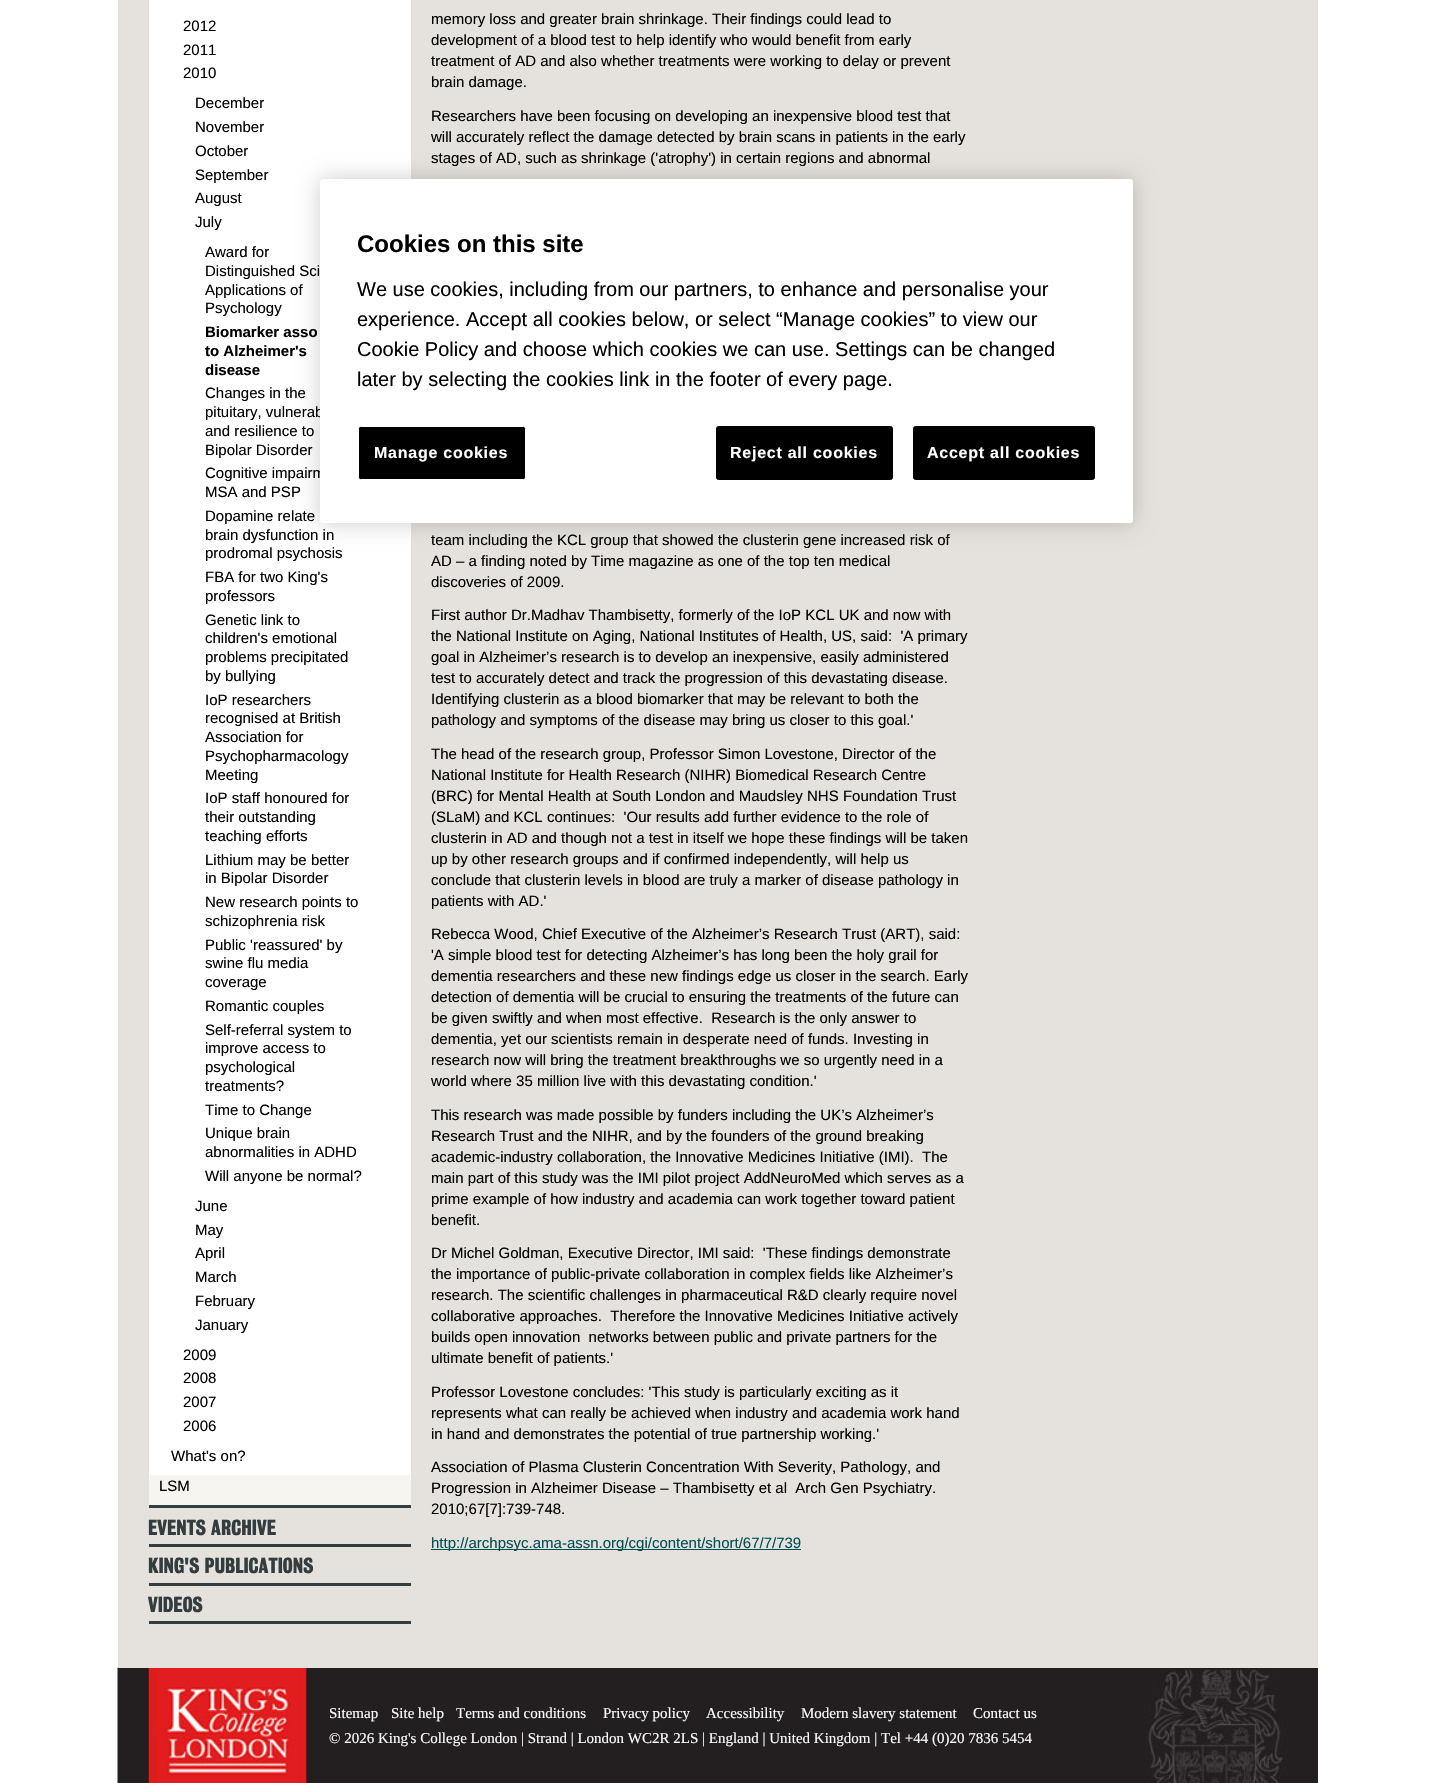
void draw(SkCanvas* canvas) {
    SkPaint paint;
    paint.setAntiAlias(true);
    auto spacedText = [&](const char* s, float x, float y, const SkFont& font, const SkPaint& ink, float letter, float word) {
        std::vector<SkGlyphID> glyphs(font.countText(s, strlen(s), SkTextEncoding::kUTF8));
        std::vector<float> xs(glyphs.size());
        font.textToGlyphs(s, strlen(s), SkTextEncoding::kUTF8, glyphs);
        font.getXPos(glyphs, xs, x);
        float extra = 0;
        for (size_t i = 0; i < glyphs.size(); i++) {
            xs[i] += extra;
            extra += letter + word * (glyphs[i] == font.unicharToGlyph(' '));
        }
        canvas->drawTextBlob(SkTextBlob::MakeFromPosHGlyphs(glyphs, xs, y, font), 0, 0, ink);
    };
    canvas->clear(0xFFFFFFFF);
    paint.setColor(0xFF231F20);
    canvas->drawRect(SkRect::MakeXYWH(1317, 1668, 1, 115), paint);
    canvas->drawImageRect(SkImages::DeferredFromEncodedData(SkData::MakeFromFileName("img1.png")), SkRect::MakeXYWH(117, 1667, 1201, 116), SkSamplingOptions());
    paint.setColor(0xFFE5E2DD);
    canvas->drawRect(SkRect::MakeXYWH(118, 0, 1200, 1668), paint);
    paint.setColor(0xFF333C3E);
    canvas->drawRect(SkRect::MakeXYWH(149, 1505, 262, 3), paint);
    paint.setColor(0xFFF6F5F0);
    canvas->drawRect(SkRect::MakeXYWH(149, 1475, 262, 30), paint);
    paint.setColor(0xFFFFFFFF);
    canvas->drawRect(SkRect::MakeXYWH(149, 0, 262, 1475), paint);
    SkFont font1(fontMgr->matchFamilyStyle("Liberation Sans", SkFontStyle::Normal()), 15);
    font1.setSubpixel(true);
    paint.setColor(0xFF000000);
    canvas->drawString("2012", 183, 31, font1, paint);
    canvas->drawString("2011", 183, 55, font1, paint);
    canvas->drawString("2010", 183, 78, font1, paint);
    canvas->drawString("December", 195, 108, font1, paint);
    canvas->drawString("November", 195, 132, font1, paint);
    canvas->drawString("October", 195, 156, font1, paint);
    canvas->drawString("September", 195, 180, font1, paint);
    canvas->drawString("August", 195, 203, font1, paint);
    canvas->drawString("July", 195, 227, font1, paint);
    canvas->drawString("Award for", 205, 257, font1, paint);
    canvas->drawString("Distinguished Sci", 205, 276, font1, paint);
    canvas->drawString("Applications of", 205, 295, font1, paint);
    canvas->drawString("Psychology", 205, 313, font1, paint);
    SkFont font2(fontMgr->matchFamilyStyle("Liberation Sans", SkFontStyle::Bold()), 15);
    font2.setSubpixel(true);
    canvas->drawString("Biomarker asso", 205, 337, font2, paint);
    canvas->drawString("to Alzheimer's", 205, 356, font2, paint);
    canvas->drawString("disease", 205, 375, font2, paint);
    canvas->drawString("Changes in the", 205, 398, font1, paint);
    canvas->drawString("pituitary, vulnerab", 205, 417, font1, paint);
    canvas->drawString("and resilience to", 205, 436, font1, paint);
    canvas->drawString("Bipolar Disorder", 205, 455, font1, paint);
    canvas->drawString("Cognitive impairm", 205, 478, font1, paint);
    canvas->drawString("MSA and PSP", 205, 497, font1, paint);
    canvas->drawString("Dopamine relate", 205, 521, font1, paint);
    canvas->drawString("brain dysfunction in", 205, 540, font1, paint);
    canvas->drawString("prodromal psychosis", 205, 558, font1, paint);
    canvas->drawString("FBA for two King's", 205, 582, font1, paint);
    canvas->drawString("professors", 205, 601, font1, paint);
    canvas->drawString("Genetic link to", 205, 625, font1, paint);
    canvas->drawString("children's emotional", 205, 643, font1, paint);
    canvas->drawString("problems precipitated", 205, 662, font1, paint);
    canvas->drawString("by bullying", 205, 681, font1, paint);
    canvas->drawString("IoP researchers", 205, 705, font1, paint);
    canvas->drawString("recognised at British", 205, 723, font1, paint);
    canvas->drawString("Association for", 205, 742, font1, paint);
    canvas->drawString("Psychopharmacology", 205, 761, font1, paint);
    canvas->drawString("Meeting", 205, 780, font1, paint);
    canvas->drawString("IoP staff honoured for", 205, 803, font1, paint);
    canvas->drawString("their outstanding", 205, 822, font1, paint);
    canvas->drawString("teaching efforts", 205, 841, font1, paint);
    canvas->drawString("Lithium may be better", 205, 865, font1, paint);
    canvas->drawString("in Bipolar Disorder", 205, 883, font1, paint);
    canvas->drawString("New research points to", 205, 907, font1, paint);
    canvas->drawString("schizophrenia risk", 205, 926, font1, paint);
    canvas->drawString("Public 'reassured' by", 205, 950, font1, paint);
    canvas->drawString("swine flu media", 205, 968, font1, paint);
    canvas->drawString("coverage", 205, 987, font1, paint);
    canvas->drawString("Romantic couples", 205, 1011, font1, paint);
    canvas->drawString("Self-referral system to", 205, 1035, font1, paint);
    canvas->drawString("improve access to", 205, 1053, font1, paint);
    canvas->drawString("psychological", 205, 1072, font1, paint);
    canvas->drawString("treatments?", 205, 1091, font1, paint);
    canvas->drawString("Time to Change", 205, 1115, font1, paint);
    canvas->drawString("Unique brain", 205, 1138, font1, paint);
    canvas->drawString("abnormalities in ADHD", 205, 1157, font1, paint);
    canvas->drawString("Will anyone be normal?", 205, 1181, font1, paint);
    canvas->drawString("June", 195, 1211, font1, paint);
    canvas->drawString("May", 195, 1235, font1, paint);
    canvas->drawString("April", 195, 1258, font1, paint);
    canvas->drawString("March", 195, 1282, font1, paint);
    canvas->drawString("February", 195, 1306, font1, paint);
    canvas->drawString("January", 195, 1330, font1, paint);
    canvas->drawString("2009", 183, 1360, font1, paint);
    canvas->drawString("2008", 183, 1383, font1, paint);
    canvas->drawString("2007", 183, 1407, font1, paint);
    canvas->drawString("2006", 183, 1431, font1, paint);
    canvas->drawString("What's on?", 171, 1461, font1, paint);
    canvas->drawString("LSM", 159, 1491, font1, paint);
    paint.setColor(0xFF333C3E);
    canvas->drawRect(SkRect::MakeXYWH(149, 1544, 262, 3), paint);
    SkFont font3(fontMgr->matchFamilyStyle("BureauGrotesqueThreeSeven", SkFontStyle::Bold()), 20);
    font3.setSubpixel(true);
    canvas->drawString("EVENTS ARCHIVE", 148, 1535, font3, paint);
    canvas->drawRect(SkRect::MakeXYWH(149, 1583, 262, 3), paint);
    canvas->drawString("KING'S PUBLICATIONS", 148, 1573, font3, paint);
    canvas->drawRect(SkRect::MakeXYWH(149, 1621, 262, 3), paint);
    canvas->drawString("VIDEOS", 148, 1612, font3, paint);
    paint.setColor(0xFF000000);
    canvas->drawString("memory loss and greater brain shrinkage. Their findings could lead to", 431, 24, font1, paint);
    canvas->drawString("development of a blood test to help identify who would benefit from early", 431, 45, font1, paint);
    canvas->drawString("treatment of AD and also whether treatments were working to delay or prevent", 431, 66, font1, paint);
    canvas->drawString("brain damage.", 431, 87, font1, paint);
    canvas->drawString("Researchers have been focusing on developing an inexpensive blood test that", 431, 121, font1, paint);
    canvas->drawString("will accurately reflect the damage detected by brain scans in patients in the early", 431, 142, font1, paint);
    canvas->drawString("stages of AD, such as shrinkage ('atrophy') in certain regions and abnormal", 431, 163, font1, paint);
    canvas->drawString("team including the KCL group that showed the clusterin gene increased risk of", 431, 545, font1, paint);
    canvas->drawString("AD – a finding noted by Time magazine as one of the top ten medical", 431, 566, font1, paint);
    canvas->drawString("discoveries of 2009.", 431, 587, font1, paint);
    canvas->drawString("First author Dr.Madhav Thambisetty, formerly of the IoP KCL UK and now with", 431, 620, font1, paint);
    canvas->drawString("the National Institute on Aging, National Institutes of Health, US, said:  'A primary", 431, 641, font1, paint);
    canvas->drawString("goal in Alzheimer’s research is to develop an inexpensive, easily administered", 431, 662, font1, paint);
    canvas->drawString("test to accurately detect and track the progression of this devastating disease.", 431, 683, font1, paint);
    canvas->drawString("Identifying clusterin as a blood biomarker that may be relevant to both the", 431, 704, font1, paint);
    canvas->drawString("pathology and symptoms of the disease may bring us closer to this goal.'", 431, 725, font1, paint);
    canvas->drawString("The head of the research group, Professor Simon Lovestone, Director of the", 431, 759, font1, paint);
    canvas->drawString("National Institute for Health Research (NIHR) Biomedical Research Centre", 431, 780, font1, paint);
    canvas->drawString("(BRC) for Mental Health at South London and Maudsley NHS Foundation Trust", 431, 801, font1, paint);
    canvas->drawString("(SLaM) and KCL continues:  'Our results add further evidence to the role of", 431, 822, font1, paint);
    canvas->drawString("clusterin in AD and though not a test in itself we hope these findings will be taken", 431, 843, font1, paint);
    canvas->drawString("up by other research groups and if confirmed independently, will help us", 431, 864, font1, paint);
    canvas->drawString("conclude that clusterin levels in blood are truly a marker of disease pathology in", 431, 885, font1, paint);
    canvas->drawString("patients with AD.'", 431, 906, font1, paint);
    canvas->drawString("Rebecca Wood, Chief Executive of the Alzheimer’s Research Trust (ART), said:", 431, 939, font1, paint);
    canvas->drawString("'A simple blood test for detecting Alzheimer’s has long been the holy grail for", 431, 960, font1, paint);
    canvas->drawString("dementia researchers and these new findings edge us closer in the search. Early", 431, 981, font1, paint);
    canvas->drawString("detection of dementia will be crucial to ensuring the treatments of the future can", 431, 1002, font1, paint);
    canvas->drawString("be given swiftly and when most effective.  Research is the only answer to", 431, 1023, font1, paint);
    canvas->drawString("dementia, yet our scientists remain in desperate need of funds. Investing in", 431, 1044, font1, paint);
    canvas->drawString("research now will bring the treatment breakthroughs we so urgently need in a", 431, 1065, font1, paint);
    canvas->drawString("world where 35 million live with this devastating condition.'", 431, 1086, font1, paint);
    canvas->drawString("This research was made possible by funders including the UK’s Alzheimer’s", 431, 1120, font1, paint);
    canvas->drawString("Research Trust and the NIHR, and by the founders of the ground breaking", 431, 1141, font1, paint);
    canvas->drawString("academic-industry collaboration, the Innovative Medicines Initiative (IMI).  The", 431, 1162, font1, paint);
    canvas->drawString("main part of this study was the IMI pilot project AddNeuroMed which serves as a", 431, 1183, font1, paint);
    canvas->drawString("prime example of how industry and academia can work together toward patient", 431, 1204, font1, paint);
    canvas->drawString("benefit.", 431, 1225, font1, paint);
    canvas->drawString("Dr Michel Goldman, Executive Director, IMI said:  'These findings demonstrate", 431, 1258, font1, paint);
    canvas->drawString("the importance of public-private collaboration in complex fields like Alzheimer’s", 431, 1279, font1, paint);
    canvas->drawString("research. The scientific challenges in pharmaceutical R&D clearly require novel", 431, 1300, font1, paint);
    canvas->drawString("collaborative approaches.  Therefore the Innovative Medicines Initiative actively", 431, 1321, font1, paint);
    canvas->drawString("builds open innovation  networks between public and private partners for the", 431, 1342, font1, paint);
    canvas->drawString("ultimate benefit of patients.'", 431, 1363, font1, paint);
    canvas->drawString("Professor Lovestone concludes: 'This study is particularly exciting as it", 431, 1397, font1, paint);
    canvas->drawString("represents what can really be achieved when industry and academia work hand", 431, 1418, font1, paint);
    canvas->drawString("in hand and demonstrates the potential of true partnership working.'", 431, 1439, font1, paint);
    canvas->drawString("Association of Plasma Clusterin Concentration With Severity, Pathology, and", 431, 1472, font1, paint);
    canvas->drawString("Progression in Alzheimer Disease – Thambisetty et al  Arch Gen Psychiatry.", 431, 1493, font1, paint);
    canvas->drawString("2010;67[7]:739-748.", 431, 1514, font1, paint);
    paint.setColor(0xFF005054);
    canvas->drawRect(SkRect::MakeXYWH(431, 1549, 370, 1), paint);
    canvas->drawString("http://archpsyc.ama-assn.org/cgi/content/short/67/7/739", 431, 1548, font1, paint);
    SkFont font4(fontMgr->matchFamilyStyle("Liberation Serif", SkFontStyle::Normal()), 15);
    font4.setSubpixel(true);
    paint.setColor(0xFFFFFFFF);
    canvas->drawString("Sitemap", 329, 1718, font4, paint);
    canvas->drawString("Site help", 391, 1718, font4, paint);
    canvas->drawString("Terms and conditions", 456, 1718, font4, paint);
    canvas->drawString("Privacy policy", 603, 1718, font4, paint);
    canvas->drawString("Accessibility", 706, 1718, font4, paint);
    canvas->drawString("Modern slavery statement", 801, 1718, font4, paint);
    canvas->drawString("Contact us", 973, 1718, font4, paint);
    canvas->drawString("© 2026 King's College London | Strand | London WC2R 2LS | England | United Kingdom | Tel +44 (0)20 7836 5454", 329, 1743, font4, paint);
    paint.setColor(0x33000000);
    paint.setMaskFilter(SkMaskFilter::MakeBlur(kNormal_SkBlurStyle, 11));
    canvas->drawRoundRect(SkRect::MakeXYWH(320, 179, 813, 344), 3, 3, paint);
    paint.setMaskFilter(nullptr);
    paint.setColor(0xFFFFFFFF);
    canvas->drawRoundRect(SkRect::MakeXYWH(320, 179, 813, 344), 3, 3, paint);
    SkFont font5(fontMgr->matchFamilyStyle("Liberation Sans", SkFontStyle::Bold()), 24);
    font5.setSubpixel(true);
    paint.setColor(0xFF000000);
    canvas->drawString("Cookies on this site", 357, 252, font5, paint);
    SkFont font6(fontMgr->matchFamilyStyle("Liberation Sans", SkFontStyle::Normal()), 20);
    font6.setSubpixel(true);
    canvas->drawString("We use cookies, including from our partners, to enhance and personalise your", 357, 296, font6, paint);
    canvas->drawString("experience. Accept all cookies below, or select “Manage cookies” to view our", 357, 326, font6, paint);
    canvas->drawString("Cookie Policy and choose which cookies we can use. Settings can be changed", 357, 356, font6, paint);
    canvas->drawString("later by selecting the cookies link in the footer of every page.", 357, 386, font6, paint);
    canvas->drawRoundRect(SkRect::MakeXYWH(358.5f, 426.5f, 167, 53), 2, 2, paint);
    paint.setStyle(SkPaint::kStroke_Style);
    paint.setStrokeWidth(1);
    paint.setColor(0xFFFFFFFF);
    canvas->drawRoundRect(SkRect::MakeXYWH(358.5f, 426.5f, 167, 53), 2, 2, paint);
    SkFont font7(fontMgr->matchFamilyStyle("Liberation Sans", SkFontStyle::Bold()), 16);
    font7.setSubpixel(true);
    paint.setStyle(SkPaint::kFill_Style);
    spacedText("Manage cookies", 374, 458, font7, paint, 0.75f, 0);
    paint.setColor(0xFF000000);
    canvas->drawRoundRect(SkRect::MakeXYWH(716.5f, 426.5f, 176, 53), 2, 2, paint);
    paint.setStyle(SkPaint::kStroke_Style);
    canvas->drawRoundRect(SkRect::MakeXYWH(716.5f, 426.5f, 176, 53), 2, 2, paint);
    paint.setStyle(SkPaint::kFill_Style);
    paint.setColor(0xFFFFFFFF);
    spacedText("Reject all cookies", 730, 458, font7, paint, 0.75f, 0);
    paint.setColor(0xFF000000);
    canvas->drawRoundRect(SkRect::MakeXYWH(913.5f, 426.5f, 181, 53), 2, 2, paint);
    paint.setStyle(SkPaint::kStroke_Style);
    canvas->drawRoundRect(SkRect::MakeXYWH(913.5f, 426.5f, 181, 53), 2, 2, paint);
    paint.setStyle(SkPaint::kFill_Style);
    paint.setColor(0xFFFFFFFF);
    spacedText("Accept all cookies", 927, 458, font7, paint, 0.75f, 0);
}
